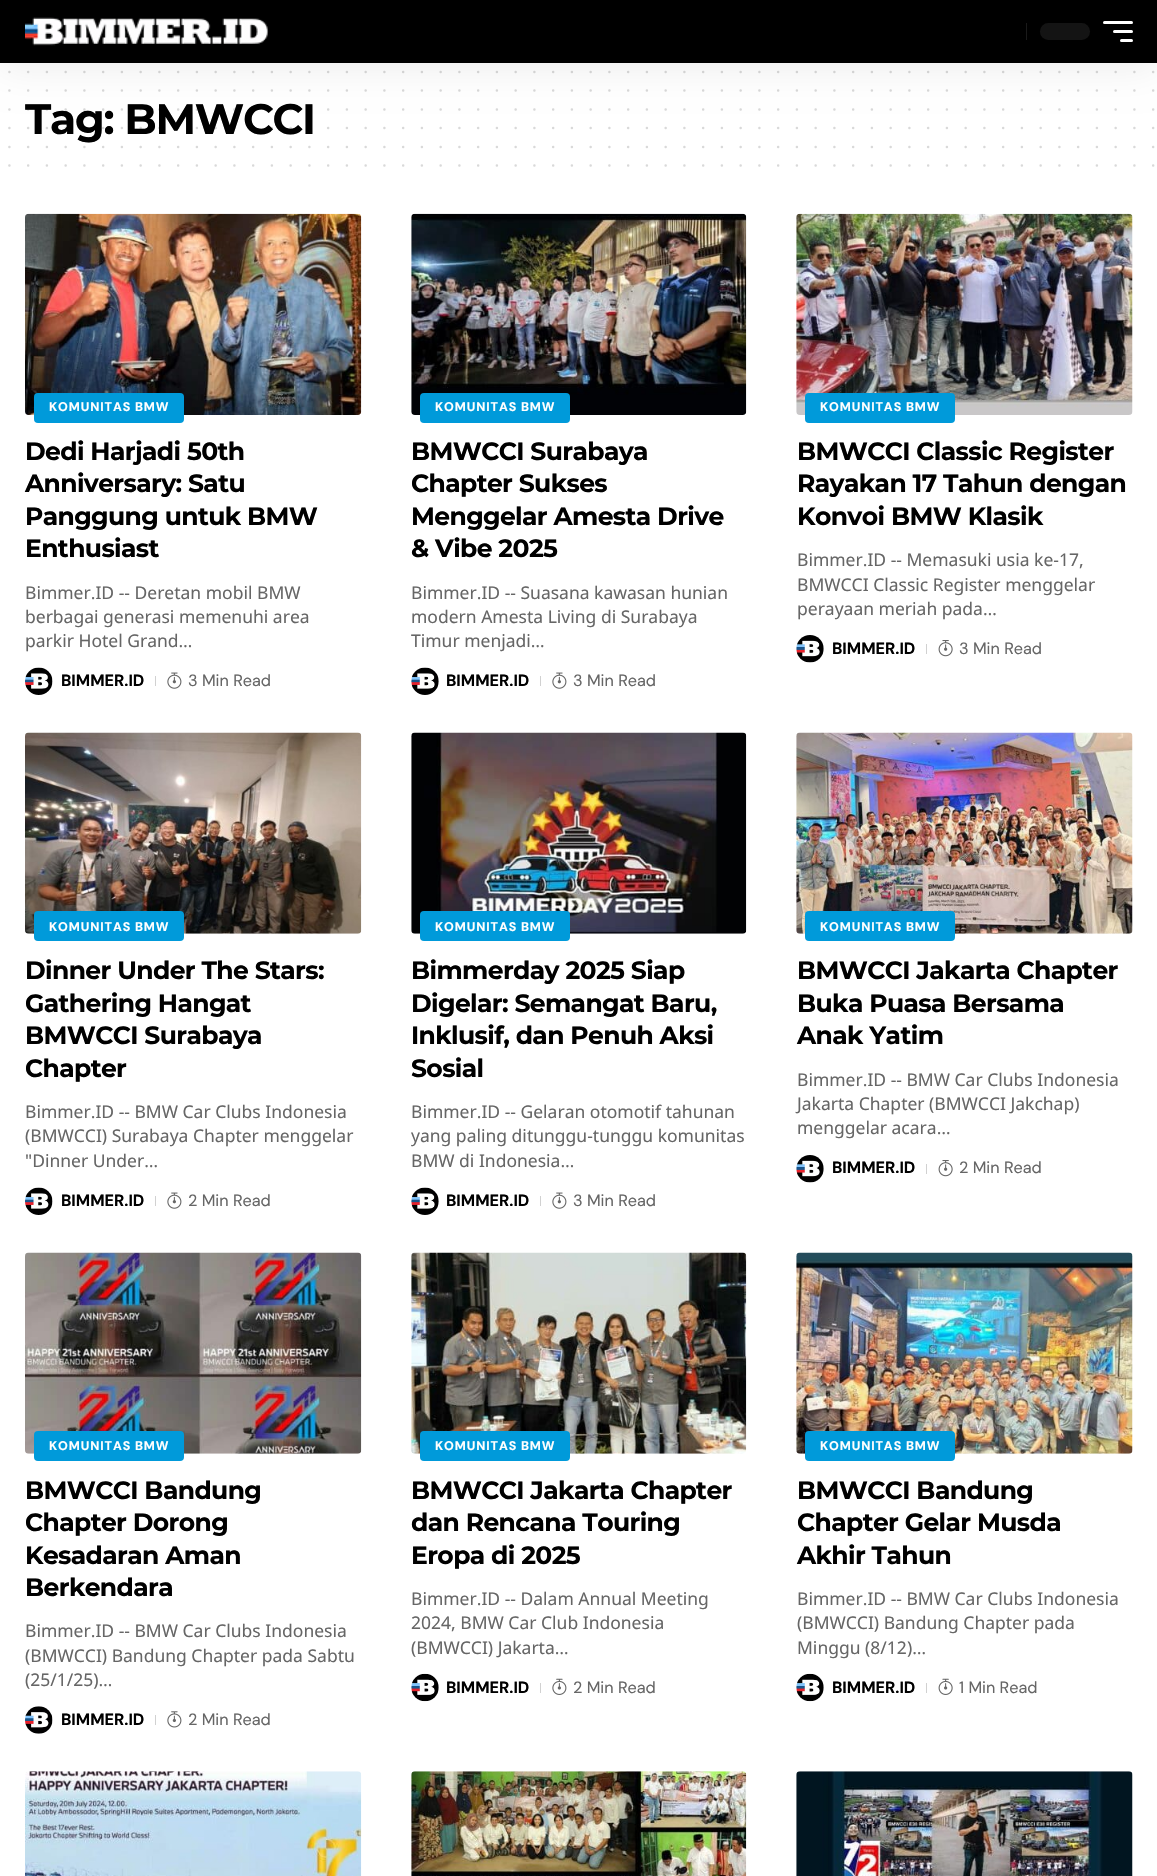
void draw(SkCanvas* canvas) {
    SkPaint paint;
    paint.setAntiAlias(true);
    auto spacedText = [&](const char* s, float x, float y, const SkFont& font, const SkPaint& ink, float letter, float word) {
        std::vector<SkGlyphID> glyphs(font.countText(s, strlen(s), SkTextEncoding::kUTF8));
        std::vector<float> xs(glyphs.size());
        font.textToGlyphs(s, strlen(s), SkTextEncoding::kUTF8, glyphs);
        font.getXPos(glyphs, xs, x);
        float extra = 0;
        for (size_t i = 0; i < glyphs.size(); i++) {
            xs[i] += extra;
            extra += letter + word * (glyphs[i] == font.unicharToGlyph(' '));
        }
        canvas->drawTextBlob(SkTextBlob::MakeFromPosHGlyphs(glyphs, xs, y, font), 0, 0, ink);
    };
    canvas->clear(0xFFFFFFFF);
    paint.setStyle(SkPaint::kStroke_Style);
    paint.setStrokeWidth(2.5f);
    paint.setStrokeCap(SkPaint::kRound_Cap);
    paint.setColor(0xFFD9D9D9);
    paint.setPathEffect(SkDashPathEffect::Make({{0, 18.75f}}, 0));
    canvas->drawPath(SkPathBuilder().moveTo(9.4f, 71.9f).lineTo(1153.4f, 71.9f).detach(), paint);
    paint.setPathEffect(nullptr);
    paint.setPathEffect(SkDashPathEffect::Make({{0, 18.75f}}, 0));
    canvas->drawPath(SkPathBuilder().moveTo(9.4f, 90.6f).lineTo(1153.4f, 90.6f).detach(), paint);
    paint.setPathEffect(nullptr);
    SkFont font1(fontMgr->matchFamilyStyle("Montserrat", SkFontStyle::Bold()), 42.5f);
    font1.setSubpixel(true);
    paint.setStyle(SkPaint::kFill_Style);
    paint.setColor(0xFF000000);
    spacedText("Tag: BMWCCI", 25, 134, font1, paint, -1.25f, 0);
    paint.setStyle(SkPaint::kStroke_Style);
    paint.setColor(0x26000000);
    paint.setPathEffect(SkDashPathEffect::Make({{0, 18.75f}}, 0));
    canvas->drawPath(SkPathBuilder().moveTo(9.4f, 109.4f).lineTo(1153.4f, 109.4f).detach(), paint);
    paint.setPathEffect(nullptr);
    paint.setStyle(SkPaint::kFill_Style);
    paint.setColor(0x12000000);
    paint.setMaskFilter(SkMaskFilter::MakeBlur(kNormal_SkBlurStyle, 19));
    canvas->drawRect(SkRect::MakeXYWH(0, 5, 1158, 63), paint);
    paint.setMaskFilter(nullptr);
    paint.setColor(0xFF000000);
    canvas->drawRect(SkRect::MakeXYWH(0, 0, 1157, 63), paint);
    canvas->drawImageRect(SkImages::DeferredFromEncodedData(SkData::MakeFromFileName("img1.png")), SkRect::MakeXYWH(25, 17, 244, 29), SkSamplingOptions());
    paint.setColor(0xFF1A1A1A);
    canvas->drawRect(SkRect::MakeXYWH(1026, 23, 1, 17), paint);
    paint.setColor(0xFF141414);
    canvas->drawRoundRect(SkRect::MakeXYWH(1040, 23, 50, 17), 8.5f, 8.5f, paint);
    paint.setColor(0xFFFFFFFF);
    canvas->drawRoundRect(SkRect::MakeXYWH(1103, 21, 30, 3), 1.5f, 1.5f, paint);
    canvas->drawRoundRect(SkRect::MakeXYWH(1113, 30, 20, 3), 1.5f, 1.5f, paint);
    canvas->drawRoundRect(SkRect::MakeXYWH(1120, 39, 13, 3), 1.5f, 1.5f, paint);
    paint.setStyle(SkPaint::kStroke_Style);
    paint.setColor(0x26000000);
    paint.setPathEffect(SkDashPathEffect::Make({{0, 18.75f}}, 0));
    canvas->drawPath(SkPathBuilder().moveTo(9.4f, 128.1f).lineTo(1153.4f, 128.1f).detach(), paint);
    paint.setPathEffect(nullptr);
    paint.setColor(0xFFD9D9D9);
    paint.setPathEffect(SkDashPathEffect::Make({{0, 18.75f}}, 0));
    canvas->drawPath(SkPathBuilder().moveTo(9.4f, 146.9f).lineTo(1153.4f, 146.9f).detach(), paint);
    paint.setPathEffect(nullptr);
    paint.setPathEffect(SkDashPathEffect::Make({{0, 18.75f}}, 0));
    canvas->drawPath(SkPathBuilder().moveTo(9.4f, 165.6f).lineTo(1153.4f, 165.6f).detach(), paint);
    paint.setPathEffect(nullptr);
    canvas->drawImageRect(SkImages::DeferredFromEncodedData(SkData::MakeFromFileName("img2.png")), SkRect::MakeXYWH(25, 213, 337, 202), SkSamplingOptions());
    paint.setStyle(SkPaint::kFill_Style);
    paint.setColor(0xFF009ADA);
    canvas->drawRoundRect(SkRect::MakeXYWH(34, 393, 150, 30), 4, 4, paint);
    SkFont font2(fontMgr->matchFamilyStyle("DM Sans", SkFontStyle::Bold()), 12.5f);
    font2.setSubpixel(true);
    paint.setColor(0xFFFFFFFF);
    spacedText("KOMUNITAS BMW", 49, 411, font2, paint, 0.9f, 0);
    SkFont font3(fontMgr->matchFamilyStyle("Montserrat", SkFontStyle::Bold()), 25);
    font3.setSubpixel(true);
    paint.setColor(0xFF000000);
    spacedText("Dedi Harjadi 50th", 25, 460, font3, paint, -0.6f, 0);
    spacedText("Anniversary: Satu", 25, 492, font3, paint, -0.6f, 0);
    spacedText("Panggung untuk BMW", 25, 525, font3, paint, -0.6f, 0);
    spacedText("Enthusiast", 25, 557, font3, paint, -0.6f, 0);
    SkFont font4(fontMgr->matchFamilyStyle("Noto Sans", SkFontStyle::Normal()), 17.5f);
    font4.setSubpixel(true);
    paint.setColor(0xFF666666);
    canvas->drawString("Bimmer.ID -- Deretan mobil BMW", 25, 599, font4, paint);
    canvas->drawString("berbagai generasi memenuhi area", 25, 623, font4, paint);
    canvas->drawString("parkir Hotel Grand…", 25, 647, font4, paint);
    canvas->drawImageRect(SkImages::DeferredFromEncodedData(SkData::MakeFromFileName("img3.png")), SkRect::MakeXYWH(25, 667, 28, 28), SkSamplingOptions());
    SkFont font5(fontMgr->matchFamilyStyle("DM Sans", SkFontStyle::Bold()), 16.25f);
    font5.setSubpixel(true);
    paint.setColor(0xFF000000);
    canvas->drawString("BIMMER.ID", 61, 686, font5, paint);
    paint.setColor(0xFFD1D1D1);
    canvas->drawRect(SkRect::MakeXYWH(155, 676, 1, 10), paint);
    canvas->drawImageRect(SkImages::DeferredFromEncodedData(SkData::MakeFromFileName("img4.png")), SkRect::MakeXYWH(167, 672, 15, 17), SkSamplingOptions());
    SkFont font6(fontMgr->matchFamilyStyle("DM Sans", SkFontStyle::Normal()), 16.25f);
    font6.setSubpixel(true);
    paint.setColor(0xFF666666);
    canvas->drawString("3 Min Read", 188, 686, font6, paint);
    canvas->drawImageRect(SkImages::DeferredFromEncodedData(SkData::MakeFromFileName("img5.png")), SkRect::MakeXYWH(411, 213, 336, 202), SkSamplingOptions());
    paint.setColor(0xFF009ADA);
    canvas->drawRoundRect(SkRect::MakeXYWH(420, 393, 150, 30), 4, 4, paint);
    paint.setColor(0xFFFFFFFF);
    spacedText("KOMUNITAS BMW", 435, 411, font2, paint, 0.9f, 0);
    paint.setColor(0xFF000000);
    spacedText("BMWCCI Surabaya", 411, 460, font3, paint, -0.6f, 0);
    spacedText("Chapter Sukses", 411, 492, font3, paint, -0.6f, 0);
    spacedText("Menggelar Amesta Drive", 411, 525, font3, paint, -0.6f, 0);
    spacedText("& Vibe 2025", 411, 557, font3, paint, -0.6f, 0);
    paint.setColor(0xFF666666);
    canvas->drawString("Bimmer.ID -- Suasana kawasan hunian", 411, 599, font4, paint);
    canvas->drawString("modern Amesta Living di Surabaya", 411, 623, font4, paint);
    canvas->drawString("Timur menjadi…", 411, 647, font4, paint);
    canvas->drawImageRect(SkImages::DeferredFromEncodedData(SkData::MakeFromFileName("img6.png")), SkRect::MakeXYWH(411, 667, 28, 28), SkSamplingOptions());
    paint.setColor(0xFF000000);
    canvas->drawString("BIMMER.ID", 446, 686, font5, paint);
    paint.setColor(0xFFD1D1D1);
    canvas->drawRect(SkRect::MakeXYWH(540, 676, 1, 10), paint);
    canvas->drawImageRect(SkImages::DeferredFromEncodedData(SkData::MakeFromFileName("img4.png")), SkRect::MakeXYWH(552, 672, 15, 17), SkSamplingOptions());
    paint.setColor(0xFF666666);
    canvas->drawString("3 Min Read", 573, 686, font6, paint);
    canvas->drawImageRect(SkImages::DeferredFromEncodedData(SkData::MakeFromFileName("img7.png")), SkRect::MakeXYWH(796, 213, 337, 202), SkSamplingOptions());
    paint.setColor(0xFF009ADA);
    canvas->drawRoundRect(SkRect::MakeXYWH(805, 393, 150, 30), 4, 4, paint);
    paint.setColor(0xFFFFFFFF);
    spacedText("KOMUNITAS BMW", 820, 411, font2, paint, 0.9f, 0);
    paint.setColor(0xFF000000);
    spacedText("BMWCCI Classic Register", 797, 460, font3, paint, -0.6f, 0);
    spacedText("Rayakan 17 Tahun dengan", 797, 492, font3, paint, -0.6f, 0);
    spacedText("Konvoi BMW Klasik", 797, 525, font3, paint, -0.6f, 0);
    paint.setColor(0xFF666666);
    canvas->drawString("Bimmer.ID -- Memasuki usia ke-17,", 797, 566, font4, paint);
    canvas->drawString("BMWCCI Classic Register menggelar", 797, 591, font4, paint);
    canvas->drawString("perayaan meriah pada…", 797, 615, font4, paint);
    canvas->drawImageRect(SkImages::DeferredFromEncodedData(SkData::MakeFromFileName("img8.png")), SkRect::MakeXYWH(796, 635, 28, 28), SkSamplingOptions());
    paint.setColor(0xFF000000);
    canvas->drawString("BIMMER.ID", 832, 654, font5, paint);
    paint.setColor(0xFFD1D1D1);
    canvas->drawRect(SkRect::MakeXYWH(926, 644, 1, 10), paint);
    canvas->drawImageRect(SkImages::DeferredFromEncodedData(SkData::MakeFromFileName("img9.png")), SkRect::MakeXYWH(938, 640, 15, 17), SkSamplingOptions());
    paint.setColor(0xFF666666);
    canvas->drawString("3 Min Read", 959, 654, font6, paint);
    canvas->drawImageRect(SkImages::DeferredFromEncodedData(SkData::MakeFromFileName("img10.png")), SkRect::MakeXYWH(25, 732, 337, 202), SkSamplingOptions());
    paint.setColor(0xFF009ADA);
    canvas->drawRoundRect(SkRect::MakeXYWH(34, 911, 150, 30), 4, 4, paint);
    paint.setColor(0xFFFFFFFF);
    spacedText("KOMUNITAS BMW", 49, 931, font2, paint, 0.9f, 0);
    paint.setColor(0xFF000000);
    spacedText("Dinner Under The Stars:", 25, 979, font3, paint, -0.6f, 0);
    spacedText("Gathering Hangat", 25, 1012, font3, paint, -0.6f, 0);
    spacedText("BMWCCI Surabaya", 25, 1044, font3, paint, -0.6f, 0);
    spacedText("Chapter", 25, 1077, font3, paint, -0.6f, 0);
    paint.setColor(0xFF666666);
    canvas->drawString("Bimmer.ID -- BMW Car Clubs Indonesia", 25, 1118, font4, paint);
    canvas->drawString("(BMWCCI) Surabaya Chapter menggelar", 25, 1142, font4, paint);
    canvas->drawString("\"Dinner Under…", 25, 1167, font4, paint);
    canvas->drawImageRect(SkImages::DeferredFromEncodedData(SkData::MakeFromFileName("img3.png")), SkRect::MakeXYWH(25, 1187, 28, 28), SkSamplingOptions());
    paint.setColor(0xFF000000);
    canvas->drawString("BIMMER.ID", 61, 1206, font5, paint);
    paint.setColor(0xFFD1D1D1);
    canvas->drawRect(SkRect::MakeXYWH(155, 1196, 1, 10), paint);
    canvas->drawImageRect(SkImages::DeferredFromEncodedData(SkData::MakeFromFileName("img4.png")), SkRect::MakeXYWH(167, 1192, 15, 17), SkSamplingOptions());
    paint.setColor(0xFF666666);
    canvas->drawString("2 Min Read", 188, 1206, font6, paint);
    canvas->drawImageRect(SkImages::DeferredFromEncodedData(SkData::MakeFromFileName("img11.png")), SkRect::MakeXYWH(411, 732, 336, 202), SkSamplingOptions());
    paint.setColor(0xFF009ADA);
    canvas->drawRoundRect(SkRect::MakeXYWH(420, 911, 150, 30), 4, 4, paint);
    paint.setColor(0xFFFFFFFF);
    spacedText("KOMUNITAS BMW", 435, 931, font2, paint, 0.9f, 0);
    paint.setColor(0xFF000000);
    spacedText("Bimmerday 2025 Siap", 411, 979, font3, paint, -0.6f, 0);
    spacedText("Digelar: Semangat Baru,", 411, 1012, font3, paint, -0.6f, 0);
    spacedText("Inklusif, dan Penuh Aksi", 411, 1044, font3, paint, -0.6f, 0);
    spacedText("Sosial", 411, 1077, font3, paint, -0.6f, 0);
    paint.setColor(0xFF666666);
    canvas->drawString("Bimmer.ID -- Gelaran otomotif tahunan", 411, 1118, font4, paint);
    canvas->drawString("yang paling ditunggu-tunggu komunitas", 411, 1142, font4, paint);
    canvas->drawString("BMW di Indonesia…", 411, 1167, font4, paint);
    canvas->drawImageRect(SkImages::DeferredFromEncodedData(SkData::MakeFromFileName("img6.png")), SkRect::MakeXYWH(411, 1187, 28, 28), SkSamplingOptions());
    paint.setColor(0xFF000000);
    canvas->drawString("BIMMER.ID", 446, 1206, font5, paint);
    paint.setColor(0xFFD1D1D1);
    canvas->drawRect(SkRect::MakeXYWH(540, 1196, 1, 10), paint);
    canvas->drawImageRect(SkImages::DeferredFromEncodedData(SkData::MakeFromFileName("img4.png")), SkRect::MakeXYWH(552, 1192, 15, 17), SkSamplingOptions());
    paint.setColor(0xFF666666);
    canvas->drawString("3 Min Read", 573, 1206, font6, paint);
    canvas->drawImageRect(SkImages::DeferredFromEncodedData(SkData::MakeFromFileName("img12.png")), SkRect::MakeXYWH(796, 732, 337, 202), SkSamplingOptions());
    paint.setColor(0xFF009ADA);
    canvas->drawRoundRect(SkRect::MakeXYWH(805, 911, 150, 30), 4, 4, paint);
    paint.setColor(0xFFFFFFFF);
    spacedText("KOMUNITAS BMW", 820, 931, font2, paint, 0.9f, 0);
    paint.setColor(0xFF000000);
    spacedText("BMWCCI Jakarta Chapter", 797, 979, font3, paint, -0.6f, 0);
    spacedText("Buka Puasa Bersama", 797, 1012, font3, paint, -0.6f, 0);
    spacedText("Anak Yatim", 797, 1044, font3, paint, -0.6f, 0);
    paint.setColor(0xFF666666);
    canvas->drawString("Bimmer.ID -- BMW Car Clubs Indonesia", 797, 1086, font4, paint);
    canvas->drawString("Jakarta Chapter (BMWCCI Jakchap)", 797, 1110, font4, paint);
    canvas->drawString("menggelar acara…", 797, 1134, font4, paint);
    canvas->drawImageRect(SkImages::DeferredFromEncodedData(SkData::MakeFromFileName("img8.png")), SkRect::MakeXYWH(796, 1155, 28, 28), SkSamplingOptions());
    paint.setColor(0xFF000000);
    canvas->drawString("BIMMER.ID", 832, 1173, font5, paint);
    paint.setColor(0xFFD1D1D1);
    canvas->drawRect(SkRect::MakeXYWH(926, 1164, 1, 10), paint);
    canvas->drawImageRect(SkImages::DeferredFromEncodedData(SkData::MakeFromFileName("img9.png")), SkRect::MakeXYWH(938, 1160, 15, 17), SkSamplingOptions());
    paint.setColor(0xFF666666);
    canvas->drawString("2 Min Read", 959, 1173, font6, paint);
    canvas->drawImageRect(SkImages::DeferredFromEncodedData(SkData::MakeFromFileName("img13.png")), SkRect::MakeXYWH(25, 1252, 337, 202), SkSamplingOptions());
    paint.setColor(0xFF009ADA);
    canvas->drawRoundRect(SkRect::MakeXYWH(34, 1431, 150, 30), 4, 4, paint);
    paint.setColor(0xFFFFFFFF);
    spacedText("KOMUNITAS BMW", 49, 1450, font2, paint, 0.9f, 0);
    paint.setColor(0xFF000000);
    spacedText("BMWCCI Bandung", 25, 1499, font3, paint, -0.6f, 0);
    spacedText("Chapter Dorong", 25, 1531, font3, paint, -0.6f, 0);
    spacedText("Kesadaran Aman", 25, 1564, font3, paint, -0.6f, 0);
    spacedText("Berkendara", 25, 1596, font3, paint, -0.6f, 0);
    paint.setColor(0xFF666666);
    canvas->drawString("Bimmer.ID -- BMW Car Clubs Indonesia", 25, 1637, font4, paint);
    canvas->drawString("(BMWCCI) Bandung Chapter pada Sabtu", 25, 1662, font4, paint);
    canvas->drawString("(25/1/25)…", 25, 1686, font4, paint);
    canvas->drawImageRect(SkImages::DeferredFromEncodedData(SkData::MakeFromFileName("img14.png")), SkRect::MakeXYWH(25, 1706, 28, 28), SkSamplingOptions());
    paint.setColor(0xFF000000);
    canvas->drawString("BIMMER.ID", 61, 1725, font5, paint);
    paint.setColor(0xFFD1D1D1);
    canvas->drawRect(SkRect::MakeXYWH(155, 1715, 1, 10), paint);
    canvas->drawImageRect(SkImages::DeferredFromEncodedData(SkData::MakeFromFileName("img15.png")), SkRect::MakeXYWH(167, 1711, 15, 17), SkSamplingOptions());
    paint.setColor(0xFF666666);
    canvas->drawString("2 Min Read", 188, 1725, font6, paint);
    canvas->drawImageRect(SkImages::DeferredFromEncodedData(SkData::MakeFromFileName("img16.png")), SkRect::MakeXYWH(411, 1252, 336, 202), SkSamplingOptions());
    paint.setColor(0xFF009ADA);
    canvas->drawRoundRect(SkRect::MakeXYWH(420, 1431, 150, 30), 4, 4, paint);
    paint.setColor(0xFFFFFFFF);
    spacedText("KOMUNITAS BMW", 435, 1450, font2, paint, 0.9f, 0);
    paint.setColor(0xFF000000);
    spacedText("BMWCCI Jakarta Chapter", 411, 1499, font3, paint, -0.6f, 0);
    spacedText("dan Rencana Touring", 411, 1531, font3, paint, -0.6f, 0);
    spacedText("Eropa di 2025", 411, 1564, font3, paint, -0.6f, 0);
    paint.setColor(0xFF666666);
    canvas->drawString("Bimmer.ID -- Dalam Annual Meeting", 411, 1605, font4, paint);
    canvas->drawString("2024, BMW Car Club Indonesia", 411, 1629, font4, paint);
    canvas->drawString("(BMWCCI) Jakarta…", 411, 1654, font4, paint);
    canvas->drawImageRect(SkImages::DeferredFromEncodedData(SkData::MakeFromFileName("img17.png")), SkRect::MakeXYWH(411, 1673, 28, 29), SkSamplingOptions());
    paint.setColor(0xFF000000);
    canvas->drawString("BIMMER.ID", 446, 1693, font5, paint);
    paint.setColor(0xFFD1D1D1);
    canvas->drawRect(SkRect::MakeXYWH(540, 1683, 1, 10), paint);
    canvas->drawImageRect(SkImages::DeferredFromEncodedData(SkData::MakeFromFileName("img18.png")), SkRect::MakeXYWH(552, 1678, 15, 17), SkSamplingOptions());
    paint.setColor(0xFF666666);
    canvas->drawString("2 Min Read", 573, 1693, font6, paint);
    canvas->drawImageRect(SkImages::DeferredFromEncodedData(SkData::MakeFromFileName("img19.png")), SkRect::MakeXYWH(796, 1252, 337, 202), SkSamplingOptions());
    paint.setColor(0xFF009ADA);
    canvas->drawRoundRect(SkRect::MakeXYWH(805, 1431, 150, 30), 4, 4, paint);
    paint.setColor(0xFFFFFFFF);
    spacedText("KOMUNITAS BMW", 820, 1450, font2, paint, 0.9f, 0);
    paint.setColor(0xFF000000);
    spacedText("BMWCCI Bandung", 797, 1499, font3, paint, -0.6f, 0);
    spacedText("Chapter Gelar Musda", 797, 1531, font3, paint, -0.6f, 0);
    spacedText("Akhir Tahun", 797, 1564, font3, paint, -0.6f, 0);
    paint.setColor(0xFF666666);
    canvas->drawString("Bimmer.ID -- BMW Car Clubs Indonesia", 797, 1605, font4, paint);
    canvas->drawString("(BMWCCI) Bandung Chapter pada", 797, 1629, font4, paint);
    canvas->drawString("Minggu (8/12)…", 797, 1654, font4, paint);
    canvas->drawImageRect(SkImages::DeferredFromEncodedData(SkData::MakeFromFileName("img20.png")), SkRect::MakeXYWH(796, 1673, 28, 29), SkSamplingOptions());
    paint.setColor(0xFF000000);
    canvas->drawString("BIMMER.ID", 832, 1693, font5, paint);
    paint.setColor(0xFFD1D1D1);
    canvas->drawRect(SkRect::MakeXYWH(926, 1683, 1, 10), paint);
    canvas->drawImageRect(SkImages::DeferredFromEncodedData(SkData::MakeFromFileName("img21.png")), SkRect::MakeXYWH(938, 1678, 15, 17), SkSamplingOptions());
    paint.setColor(0xFF666666);
    canvas->drawString("1 Min Read", 959, 1693, font6, paint);
    canvas->drawImageRect(SkImages::DeferredFromEncodedData(SkData::MakeFromFileName("img22.png")), SkRect::MakeXYWH(25, 1771, 337, 105), SkSamplingOptions());
    canvas->drawImageRect(SkImages::DeferredFromEncodedData(SkData::MakeFromFileName("img23.png")), SkRect::MakeXYWH(411, 1771, 336, 105), SkSamplingOptions());
    canvas->drawImageRect(SkImages::DeferredFromEncodedData(SkData::MakeFromFileName("img24.png")), SkRect::MakeXYWH(796, 1771, 337, 105), SkSamplingOptions());
}
